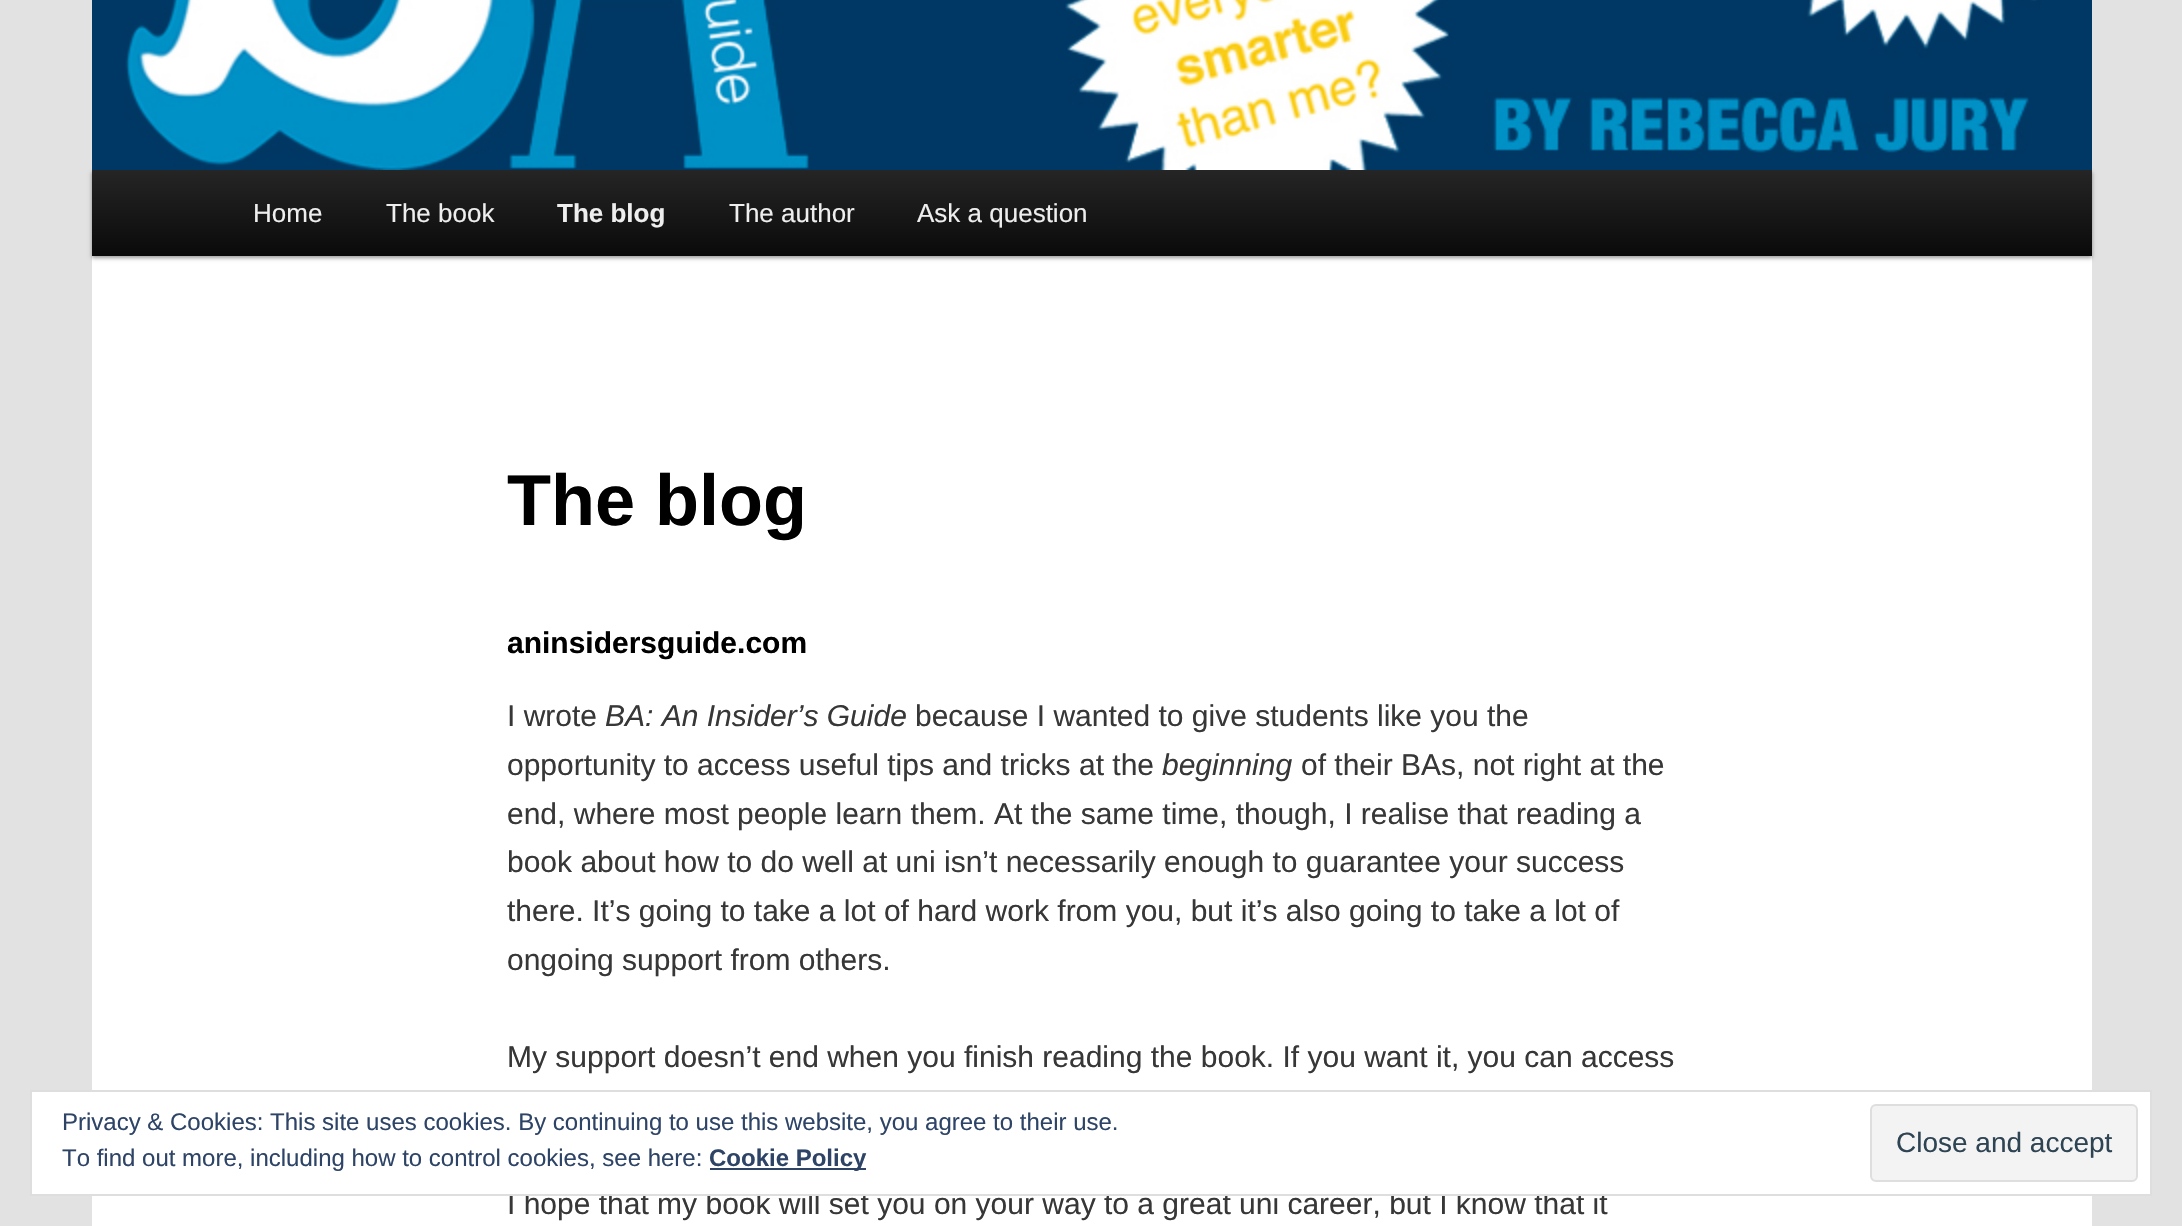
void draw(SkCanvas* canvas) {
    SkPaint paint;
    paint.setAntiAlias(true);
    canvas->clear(0xFFE2E2E2);
    paint.setColor(0xFFFFFFFF);
    canvas->drawRect(SkRect::MakeXYWH(92, 256, 2000, 970), paint);
    paint.setColor(0x66000000);
    paint.setMaskFilter(SkMaskFilter::MakeBlur(kNormal_SkBlurStyle, 2));
    canvas->drawRect(SkRect::MakeXYWH(92, 172, 2000, 86), paint);
    paint.setMaskFilter(nullptr);
    canvas->drawImageRect(SkImages::DeferredFromEncodedData(SkData::MakeFromFileName("img1.png")), SkRect::MakeXYWH(92, 0, 2000, 170), SkSamplingOptions());
    {
        const SkColor colors[] = {0xFF252525, 0xFF0A0A0A};
        const float stops[] = {0, 1};
        const SkPoint ends[] = {{1092, 170}, {1092, 256}};
        paint.setShader(SkGradientShader::MakeLinear(ends, colors, stops, 2, SkTileMode::kClamp));
        paint.setAlpha(255);
    }
    canvas->drawRect(SkRect::MakeXYWH(92, 170, 2000, 86), paint);
    SkFont font1(fontMgr->matchFamilyStyle("Liberation Sans", SkFontStyle::Normal()), 26);
    font1.setSubpixel(true);
    paint.setShader(nullptr);
    paint.setColor(0xFFEEEEEE);
    canvas->drawString("Home", 253, 222, font1, paint);
    canvas->drawString("The book", 386, 222, font1, paint);
    SkFont font2(fontMgr->matchFamilyStyle("Liberation Sans", SkFontStyle::Bold()), 26);
    font2.setSubpixel(true);
    canvas->drawString("The blog", 557, 222, font2, paint);
    canvas->drawString("The author", 729, 222, font1, paint);
    canvas->drawString("Ask a question", 917, 222, font1, paint);
    SkFont font3(fontMgr->matchFamilyStyle("Liberation Sans", SkFontStyle::Bold()), 72);
    font3.setSubpixel(true);
    paint.setColor(0xFF000000);
    canvas->drawString("The blog", 507, 525, font3, paint);
    SkFont font4(fontMgr->matchFamilyStyle("Liberation Sans", SkFontStyle::Bold()), 30);
    font4.setSubpixel(true);
    canvas->drawString("aninsidersguide.com", 507, 653, font4, paint);
    SkFont font5(fontMgr->matchFamilyStyle("Liberation Sans", SkFontStyle::Normal()), 30);
    font5.setSubpixel(true);
    paint.setColor(0xFF373737);
    canvas->drawString("I wrote", 507, 726, font5, paint);
    SkFont font6(fontMgr->matchFamilyStyle("Liberation Sans", SkFontStyle::Italic()), 30);
    font6.setSubpixel(true);
    canvas->drawString("BA: An Insider’s Guide", 605, 726, font6, paint);
    canvas->drawString("because I wanted to give students like you the", 915, 726, font5, paint);
    canvas->drawString("opportunity to access useful tips and tricks at the", 507, 775, font5, paint);
    canvas->drawString("beginning", 1162, 775, font6, paint);
    canvas->drawString("of their BAs, not right at the", 1301, 775, font5, paint);
    canvas->drawString("end, where most people learn them. At the same time, though, I realise that reading a", 507, 824, font5, paint);
    canvas->drawString("book about how to do well at uni isn’t necessarily enough to guarantee your success", 507, 872, font5, paint);
    canvas->drawString("there. It’s going to take a lot of hard work from you, but it’s also going to take a lot of", 507, 921, font5, paint);
    canvas->drawString("ongoing support from others.", 507, 970, font5, paint);
    canvas->drawString("My support doesn’t end when you finish reading the book. If you want it, you can access", 507, 1067, font5, paint);
    canvas->drawString("I hope that my book will set you on your way to a great uni career, but I know that it", 507, 1214, font5, paint);
    paint.setColor(0xFFFFFFFF);
    canvas->drawRect(SkRect::MakeXYWH(31, 1091, 2120, 104), paint);
    paint.setStyle(SkPaint::kStroke_Style);
    paint.setStrokeWidth(2);
    paint.setColor(0xFFDEDEDE);
    canvas->drawRect(SkRect::MakeXYWH(31, 1091, 2120, 104), paint);
    SkFont font7(fontMgr->matchFamilyStyle("Liberation Sans", SkFontStyle::Normal()), 24);
    font7.setSubpixel(true);
    paint.setStyle(SkPaint::kFill_Style);
    paint.setColor(0xFF2E4467);
    canvas->drawString("Privacy & Cookies: This site uses cookies. By continuing to use this website, you agree to their use.", 62, 1130, font7, paint);
    canvas->drawString("To find out more, including how to control cookies, see here:", 62, 1166, font7, paint);
    canvas->drawRect(SkRect::MakeXYWH(710, 1168, 156, 2), paint);
    SkFont font8(fontMgr->matchFamilyStyle("Liberation Sans", SkFontStyle::Bold()), 24);
    font8.setSubpixel(true);
    canvas->drawString("Cookie Policy", 709, 1166, font8, paint);
    paint.setColor(0xFFF3F3F3);
    canvas->drawRoundRect(SkRect::MakeXYWH(1871, 1105, 266, 76), 5, 5, paint);
    paint.setStyle(SkPaint::kStroke_Style);
    paint.setColor(0xFFDEDEDE);
    canvas->drawRoundRect(SkRect::MakeXYWH(1871, 1105, 266, 76), 5, 5, paint);
    SkFont font9(fontMgr->matchFamilyStyle("Liberation Sans", SkFontStyle::Normal()), 28);
    font9.setSubpixel(true);
    paint.setStyle(SkPaint::kFill_Style);
    paint.setColor(0xFF2E4453);
    canvas->drawString("Close and accept", 1896, 1152, font9, paint);
}
